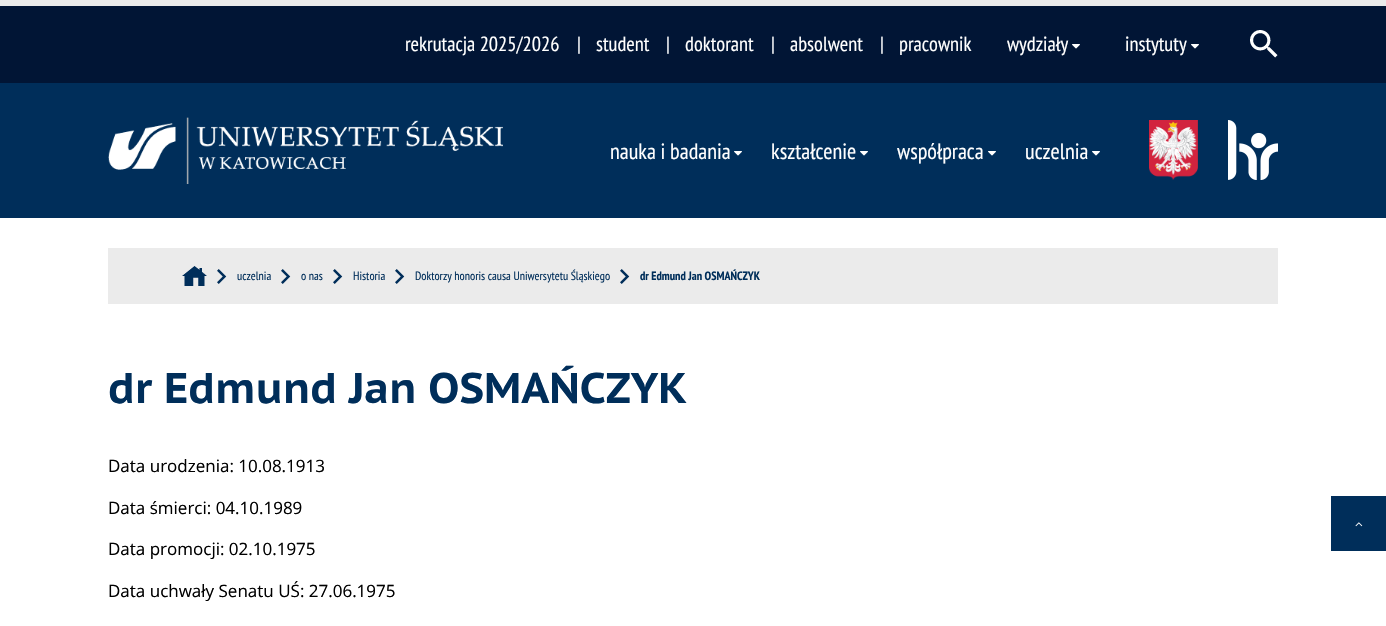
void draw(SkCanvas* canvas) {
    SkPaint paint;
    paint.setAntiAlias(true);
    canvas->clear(0xFFFFFFFF);
    paint.setColor(0xFFEBEBEB);
    canvas->drawRect(SkRect::MakeXYWH(0, 0, 1386, 6), paint);
    paint.setColor(0xFF011535);
    canvas->drawRect(SkRect::MakeXYWH(0, 6, 1386, 77), paint);
    SkFont font1(fontMgr->matchFamilyStyle("PT Sans Narrow", SkFontStyle::Normal()), 20.5f);
    font1.setSubpixel(true);
    paint.setColor(0xFFFFFFFF);
    canvas->drawString("rekrutacja 2025/2026", 405, 51, font1, paint);
    canvas->drawString("|", 577, 51, font1, paint);
    canvas->drawString("student", 596, 51, font1, paint);
    canvas->drawString("|", 666, 51, font1, paint);
    canvas->drawString("doktorant", 685, 51, font1, paint);
    canvas->drawString("|", 771, 51, font1, paint);
    canvas->drawString("absolwent", 790, 51, font1, paint);
    canvas->drawString("|", 880, 51, font1, paint);
    canvas->drawString("pracownik", 899, 51, font1, paint);
    canvas->drawString("wydziały", 1007, 51, font1, paint);
    canvas->drawImageRect(SkImages::DeferredFromEncodedData(SkData::MakeFromFileName("img1.png")), SkRect::MakeXYWH(1072, 44, 8, 5), SkSamplingOptions());
    canvas->drawString("instytuty", 1125, 51, font1, paint);
    canvas->drawImageRect(SkImages::DeferredFromEncodedData(SkData::MakeFromFileName("img1.png")), SkRect::MakeXYWH(1191, 44, 8, 5), SkSamplingOptions());
    canvas->drawImageRect(SkImages::DeferredFromEncodedData(SkData::MakeFromFileName("img2.png")), SkRect::MakeXYWH(1250, 30, 28, 28), SkSamplingOptions());
    paint.setColor(0xFF002E5A);
    canvas->drawRect(SkRect::MakeXYWH(0, 83, 1386, 135), paint);
    canvas->drawImageRect(SkImages::DeferredFromEncodedData(SkData::MakeFromFileName("img3.png")), SkRect::MakeXYWH(108, 117, 395, 67), SkSamplingOptions());
    SkFont font2(fontMgr->matchFamilyStyle("PT Sans Narrow", SkFontStyle::Normal()), 22.25f);
    font2.setSubpixel(true);
    paint.setColor(0xFFFFFFFF);
    canvas->drawString("nauka i badania", 610, 159, font2, paint);
    canvas->drawImageRect(SkImages::DeferredFromEncodedData(SkData::MakeFromFileName("img4.png")), SkRect::MakeXYWH(734, 151, 8, 5), SkSamplingOptions());
    canvas->drawString("kształcenie", 771, 159, font2, paint);
    canvas->drawImageRect(SkImages::DeferredFromEncodedData(SkData::MakeFromFileName("img4.png")), SkRect::MakeXYWH(860, 151, 8, 5), SkSamplingOptions());
    canvas->drawString("współpraca", 897, 159, font2, paint);
    canvas->drawImageRect(SkImages::DeferredFromEncodedData(SkData::MakeFromFileName("img4.png")), SkRect::MakeXYWH(988, 151, 8, 5), SkSamplingOptions());
    canvas->drawString("uczelnia", 1025, 159, font2, paint);
    canvas->drawImageRect(SkImages::DeferredFromEncodedData(SkData::MakeFromFileName("img4.png")), SkRect::MakeXYWH(1092, 151, 8, 5), SkSamplingOptions());
    canvas->drawImageRect(SkImages::DeferredFromEncodedData(SkData::MakeFromFileName("img5.png")), SkRect::MakeXYWH(1149, 120, 49, 60), SkSamplingOptions());
    canvas->drawImageRect(SkImages::DeferredFromEncodedData(SkData::MakeFromFileName("img6.png")), SkRect::MakeXYWH(1228, 120, 50, 60), SkSamplingOptions());
    paint.setColor(0xFFEBEBEB);
    canvas->drawRect(SkRect::MakeXYWH(108, 248, 1170, 56), paint);
    canvas->drawImageRect(SkImages::DeferredFromEncodedData(SkData::MakeFromFileName("img7.png")), SkRect::MakeXYWH(182, 266, 25, 20), SkSamplingOptions());
    canvas->drawImageRect(SkImages::DeferredFromEncodedData(SkData::MakeFromFileName("img8.png")), SkRect::MakeXYWH(217, 269, 10, 15), SkSamplingOptions());
    SkFont font3(fontMgr->matchFamilyStyle("PT Sans Narrow", SkFontStyle::Normal()), 12);
    font3.setSubpixel(true);
    paint.setColor(0xFF002E5A);
    canvas->drawString("uczelnia", 237, 280, font3, paint);
    canvas->drawImageRect(SkImages::DeferredFromEncodedData(SkData::MakeFromFileName("img8.png")), SkRect::MakeXYWH(281, 269, 10, 15), SkSamplingOptions());
    canvas->drawString("o nas", 301, 280, font3, paint);
    canvas->drawImageRect(SkImages::DeferredFromEncodedData(SkData::MakeFromFileName("img8.png")), SkRect::MakeXYWH(333, 269, 10, 15), SkSamplingOptions());
    canvas->drawString("Historia", 353, 280, font3, paint);
    canvas->drawImageRect(SkImages::DeferredFromEncodedData(SkData::MakeFromFileName("img8.png")), SkRect::MakeXYWH(395, 269, 10, 15), SkSamplingOptions());
    canvas->drawString("Doktorzy honoris causa Uniwersytetu Śląskiego", 415, 280, font3, paint);
    canvas->drawImageRect(SkImages::DeferredFromEncodedData(SkData::MakeFromFileName("img8.png")), SkRect::MakeXYWH(620, 269, 10, 15), SkSamplingOptions());
    SkFont font4(fontMgr->matchFamilyStyle("PT Sans Narrow", SkFontStyle::Bold()), 12);
    font4.setSubpixel(true);
    canvas->drawString("dr Edmund Jan OSMAŃCZYK", 640, 280, font4, paint);
    SkFont font5(fontMgr->matchFamilyStyle("PT Sans Caption", SkFontStyle::Bold()), 42.8f);
    font5.setSubpixel(true);
    canvas->drawString("dr Edmund Jan OSMAŃCZYK", 108, 403, font5, paint);
    SkFont font6(fontMgr->matchFamilyStyle("Open Sans", SkFontStyle::Normal()), 17);
    font6.setSubpixel(true);
    paint.setColor(0xFF000000);
    canvas->drawString("Data urodzenia: 10.08.1913", 108, 472, font6, paint);
    canvas->drawString("Data śmierci: 04.10.1989", 108, 514, font6, paint);
    canvas->drawString("Data promocji: 02.10.1975", 108, 555, font6, paint);
    canvas->drawString("Data uchwały Senatu UŚ: 27.06.1975", 108, 597, font6, paint);
    paint.setColor(0xFF002E5A);
    canvas->drawRect(SkRect::MakeXYWH(1331, 496, 55, 55), paint);
    canvas->drawImageRect(SkImages::DeferredFromEncodedData(SkData::MakeFromFileName("img9.png")), SkRect::MakeXYWH(1355, 522, 8, 5), SkSamplingOptions());
}
